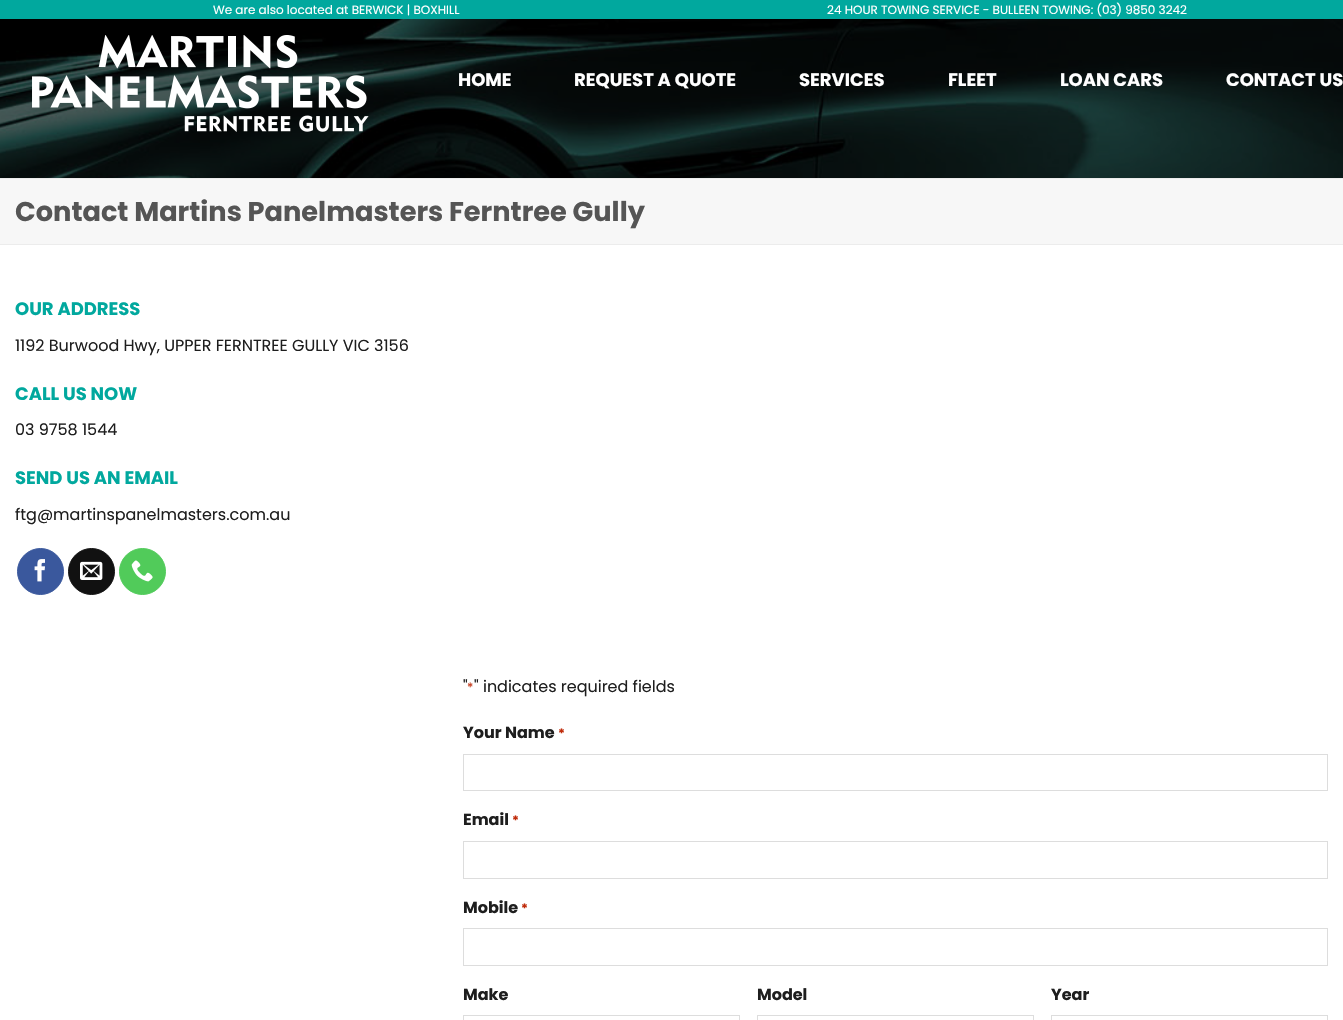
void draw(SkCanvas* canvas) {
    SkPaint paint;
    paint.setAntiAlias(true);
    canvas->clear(0xFFFFFFFF);
    paint.setColor(0xFF01A89E);
    canvas->drawRect(SkRect::MakeXYWH(0, 0, 1343, 19), paint);
    SkFont font1(fontMgr->matchFamilyStyle("Poppins", SkFontStyle::Normal()), 12);
    font1.setSubpixel(true);
    paint.setColor(0xFFFFFFFF);
    canvas->drawString("We are also located at BERWICK | BOXHILL", 213, 14, font1, paint);
    canvas->drawString("24 HOUR TOWING SERVICE - BULLEEN TOWING: (03) 9850 3242", 827, 14, font1, paint);
    canvas->drawImageRect(SkImages::DeferredFromEncodedData(SkData::MakeFromFileName("img2.png")), SkRect::MakeXYWH(0, 19, 1343, 159), SkSamplingOptions());
    canvas->drawImageRect(SkImages::DeferredFromEncodedData(SkData::MakeFromFileName("img1.png")), SkRect::MakeXYWH(32, 35, 337, 97), SkSamplingOptions());
    SkFont font2(fontMgr->matchFamilyStyle("Poppins", SkFontStyle::Bold()), 18);
    font2.setSubpixel(true);
    canvas->drawString("HOME", 458, 86, font2, paint);
    canvas->drawString("REQUEST A QUOTE", 574, 86, font2, paint);
    canvas->drawString("SERVICES", 799, 86, font2, paint);
    canvas->drawString("FLEET", 948, 86, font2, paint);
    canvas->drawString("LOAN CARS", 1060, 86, font2, paint);
    canvas->drawString("CONTACT US", 1226, 86, font2, paint);
    paint.setColor(0xFFF7F7F7);
    canvas->drawRect(SkRect::MakeXYWH(0, 179, 1343, 65), paint);
    paint.setColor(0xFFECECEC);
    canvas->drawRect(SkRect::MakeXYWH(0, 178, 1343, 1), paint);
    canvas->drawRect(SkRect::MakeXYWH(0, 244, 1343, 1), paint);
    SkFont font3(fontMgr->matchFamilyStyle("Poppins", SkFontStyle::Bold()), 27.2f);
    font3.setSubpixel(true);
    paint.setColor(0xFF555555);
    canvas->drawString("Contact Martins Panelmasters Ferntree Gully", 15, 221, font3, paint);
    paint.setColor(0xFF01A89E);
    canvas->drawString("OUR ADDRESS", 15, 315, font2, paint);
    SkFont font4(fontMgr->matchFamilyStyle("Poppins", SkFontStyle::Normal()), 16);
    font4.setSubpixel(true);
    paint.setColor(0xFF1E1E1E);
    canvas->drawString("1192 Burwood Hwy, UPPER FERNTREE GULLY VIC 3156", 15, 351, font4, paint);
    paint.setColor(0xFF01A89E);
    canvas->drawString("CALL US NOW", 15, 400, font2, paint);
    paint.setColor(0xFF1E1E1E);
    canvas->drawString("03 9758 1544", 15, 435, font4, paint);
    paint.setColor(0xFF01A89E);
    canvas->drawString("SEND US AN EMAIL", 15, 484, font2, paint);
    paint.setColor(0xFF1E1E1E);
    canvas->drawString("ftg@martinspanelmasters.com.au", 15, 520, font4, paint);
    paint.setColor(0xFF3A589D);
    canvas->drawCircle(40.5f, 571.5f, 23, paint);
    paint.setStyle(SkPaint::kStroke_Style);
    paint.setStrokeWidth(1);
    canvas->drawCircle(40.5f, 571.5f, 23, paint);
    canvas->drawImageRect(SkImages::DeferredFromEncodedData(SkData::MakeFromFileName("img3.png")), SkRect::MakeXYWH(34, 559, 11, 23), SkSamplingOptions());
    paint.setStyle(SkPaint::kFill_Style);
    paint.setColor(0xFF111111);
    canvas->drawCircle(91.5f, 571.5f, 23, paint);
    paint.setStyle(SkPaint::kStroke_Style);
    canvas->drawCircle(91.5f, 571.5f, 23, paint);
    canvas->drawImageRect(SkImages::DeferredFromEncodedData(SkData::MakeFromFileName("img4.png")), SkRect::MakeXYWH(80, 561, 23, 19), SkSamplingOptions());
    paint.setStyle(SkPaint::kFill_Style);
    paint.setColor(0xFF51CB5A);
    canvas->drawCircle(142.5f, 571.5f, 23, paint);
    paint.setStyle(SkPaint::kStroke_Style);
    canvas->drawCircle(142.5f, 571.5f, 23, paint);
    canvas->drawImageRect(SkImages::DeferredFromEncodedData(SkData::MakeFromFileName("img5.png")), SkRect::MakeXYWH(131, 560, 22, 22), SkSamplingOptions());
    paint.setStyle(SkPaint::kFill_Style);
    paint.setColor(0xFF1E1E1E);
    canvas->drawString("\"", 463, 692, font4, paint);
    SkFont font5(fontMgr->matchFamilyStyle("Poppins", SkFontStyle::Normal()), 13);
    font5.setSubpixel(true);
    paint.setColor(0xFFC02B0A);
    canvas->drawString("*", 467, 692, font5, paint);
    paint.setColor(0xFF1E1E1E);
    canvas->drawString("\" indicates required fields", 474, 692, font4, paint);
    SkFont font6(fontMgr->matchFamilyStyle("Poppins", SkFontStyle::Bold()), 16);
    font6.setSubpixel(true);
    canvas->drawString("Your Name", 463, 738, font6, paint);
    SkFont font7(fontMgr->matchFamilyStyle("Poppins", SkFontStyle::Bold()), 13);
    font7.setSubpixel(true);
    paint.setColor(0xFFC02B0A);
    canvas->drawString("*", 558, 738, font7, paint);
    paint.setStyle(SkPaint::kStroke_Style);
    paint.setColor(0xFFDDDDDD);
    canvas->drawRect(SkRect::MakeXYWH(463.5f, 754.5f, 864, 36), paint);
    paint.setStyle(SkPaint::kFill_Style);
    paint.setColor(0xFF1E1E1E);
    canvas->drawString("Email", 463, 825, font6, paint);
    paint.setColor(0xFFC02B0A);
    canvas->drawString("*", 512, 825, font7, paint);
    paint.setStyle(SkPaint::kStroke_Style);
    paint.setColor(0xFFDDDDDD);
    canvas->drawRect(SkRect::MakeXYWH(463.5f, 841.5f, 864, 37), paint);
    paint.setStyle(SkPaint::kFill_Style);
    paint.setColor(0xFF1E1E1E);
    canvas->drawString("Mobile", 463, 913, font6, paint);
    paint.setColor(0xFFC02B0A);
    canvas->drawString("*", 521, 913, font7, paint);
    paint.setStyle(SkPaint::kStroke_Style);
    paint.setColor(0xFFDDDDDD);
    canvas->drawRect(SkRect::MakeXYWH(463.5f, 928.5f, 864, 37), paint);
    paint.setStyle(SkPaint::kFill_Style);
    paint.setColor(0xFF1E1E1E);
    canvas->drawString("Make", 463, 1000, font6, paint);
    paint.setStyle(SkPaint::kStroke_Style);
    paint.setColor(0xFFDDDDDD);
    canvas->drawRect(SkRect::MakeXYWH(463.5f, 1015.5f, 276, 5), paint);
    paint.setStyle(SkPaint::kFill_Style);
    paint.setColor(0xFF1E1E1E);
    canvas->drawString("Model", 757, 1000, font6, paint);
    paint.setStyle(SkPaint::kStroke_Style);
    paint.setColor(0xFFDDDDDD);
    canvas->drawRect(SkRect::MakeXYWH(757.5f, 1015.5f, 276, 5), paint);
    paint.setStyle(SkPaint::kFill_Style);
    paint.setColor(0xFF1E1E1E);
    canvas->drawString("Year", 1051, 1000, font6, paint);
    paint.setStyle(SkPaint::kStroke_Style);
    paint.setColor(0xFFDDDDDD);
    canvas->drawRect(SkRect::MakeXYWH(1051.5f, 1015.5f, 276, 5), paint);
}
